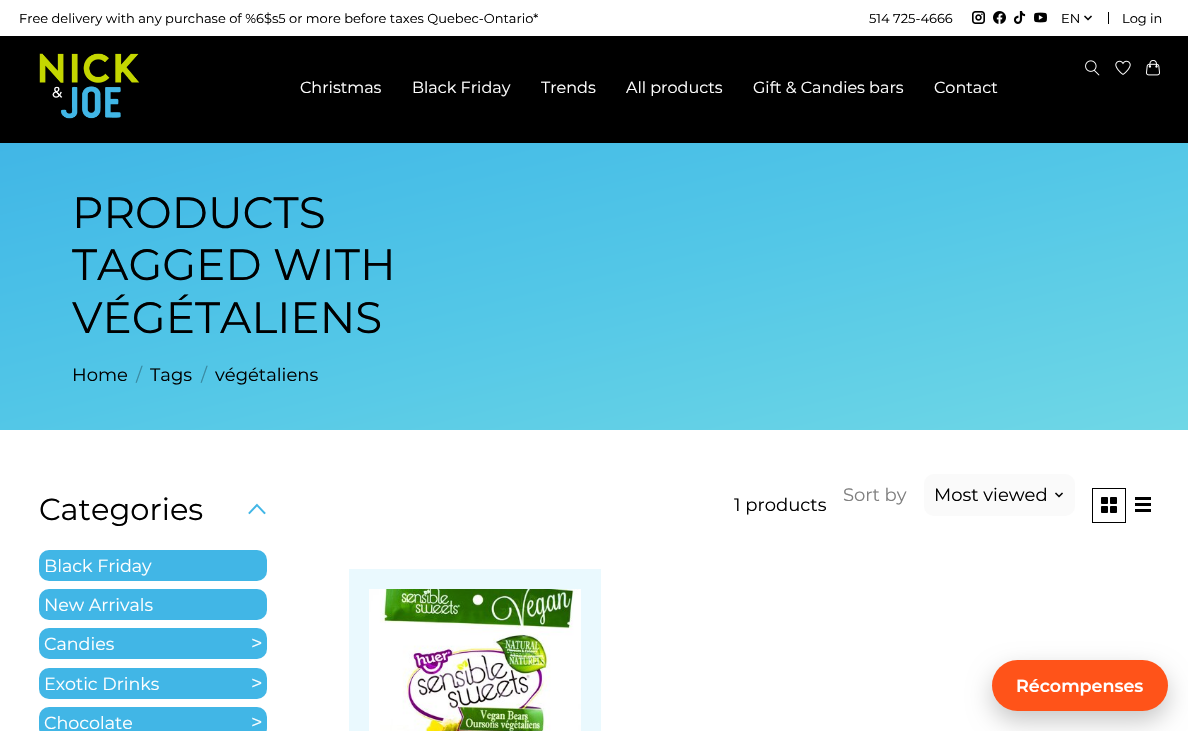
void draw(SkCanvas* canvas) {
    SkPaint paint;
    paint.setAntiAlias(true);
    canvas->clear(0xFFFFFFFF);
    SkFont font1(fontMgr->matchFamilyStyle("Montserrat", SkFontStyle::Normal()), 13);
    font1.setSubpixel(true);
    paint.setColor(0xFF000000);
    canvas->drawString("Free delivery with any purchase of %6$s5 or more before taxes Quebec-Ontario*", 19, 23, font1, paint);
    canvas->drawString("514 725-4666", 869, 23, font1, paint);
    canvas->drawImageRect(SkImages::DeferredFromEncodedData(SkData::MakeFromFileName("img1.png")), SkRect::MakeXYWH(972, 11, 13, 13), SkSamplingOptions());
    canvas->drawImageRect(SkImages::DeferredFromEncodedData(SkData::MakeFromFileName("img2.png")), SkRect::MakeXYWH(993, 11, 13, 13), SkSamplingOptions());
    canvas->drawImageRect(SkImages::DeferredFromEncodedData(SkData::MakeFromFileName("img3.png")), SkRect::MakeXYWH(1013, 11, 13, 13), SkSamplingOptions());
    canvas->drawImageRect(SkImages::DeferredFromEncodedData(SkData::MakeFromFileName("img4.png")), SkRect::MakeXYWH(1034, 12, 13, 11), SkSamplingOptions());
    canvas->drawString("EN", 1061, 23, font1, paint);
    canvas->drawImageRect(SkImages::DeferredFromEncodedData(SkData::MakeFromFileName("img5.png")), SkRect::MakeXYWH(1084, 15, 8, 6), SkSamplingOptions());
    canvas->drawRect(SkRect::MakeXYWH(1108, 12, 1, 12), paint);
    canvas->drawString("Log in", 1122, 23, font1, paint);
    canvas->drawRect(SkRect::MakeXYWH(0, 36, 1188, 107), paint);
    canvas->drawImageRect(SkImages::DeferredFromEncodedData(SkData::MakeFromFileName("img6.png")), SkRect::MakeXYWH(39, 53, 101, 66), SkSamplingOptions());
    canvas->drawImageRect(SkImages::DeferredFromEncodedData(SkData::MakeFromFileName("img7.png")), SkRect::MakeXYWH(1085, 60, 15, 16), SkSamplingOptions());
    canvas->drawImageRect(SkImages::DeferredFromEncodedData(SkData::MakeFromFileName("img8.png")), SkRect::MakeXYWH(1115, 60, 16, 15), SkSamplingOptions());
    canvas->drawImageRect(SkImages::DeferredFromEncodedData(SkData::MakeFromFileName("img9.png")), SkRect::MakeXYWH(1146, 60, 14, 16), SkSamplingOptions());
    SkFont font2(fontMgr->matchFamilyStyle("Montserrat", SkFontStyle::Normal()), 16);
    font2.setSubpixel(true);
    paint.setColor(0xFFFFFFFF);
    canvas->drawString("Christmas", 300, 93, font2, paint);
    canvas->drawString("Black Friday", 412, 93, font2, paint);
    canvas->drawString("Trends", 541, 93, font2, paint);
    canvas->drawString("All products", 626, 93, font2, paint);
    canvas->drawString("Gift & Candies bars", 753, 93, font2, paint);
    canvas->drawString("Contact", 934, 93, font2, paint);
    {
        const SkColor colors[] = {0xFF41B6E6, 0xFF49BFE7, 0xFF53C7E7, 0xFF61CFE6, 0xFF6FD7E6};
        const float stops[] = {0, 0.25f, 0.5f, 0.75f, 1};
        const SkPoint ends[] = {{528, 15}, {660, 558}};
        paint.setShader(SkGradientShader::MakeLinear(ends, colors, stops, 5, SkTileMode::kClamp));
        paint.setAlpha(255);
    }
    canvas->drawRect(SkRect::MakeXYWH(0, 143, 1188, 287), paint);
    SkFont font3(fontMgr->matchFamilyStyle("Montserrat", SkFontStyle::Normal()), 43.75f);
    font3.setSubpixel(true);
    paint.setShader(nullptr);
    paint.setColor(0xFF000000);
    canvas->drawString("PRODUCTS", 72, 228, font3, paint);
    canvas->drawString("TAGGED WITH", 72, 280, font3, paint);
    canvas->drawString("VÉGÉTALIENS", 72, 333, font3, paint);
    SkFont font4(fontMgr->matchFamilyStyle("Montserrat", SkFontStyle::Normal()), 18);
    font4.setSubpixel(true);
    canvas->drawString("Home", 72, 381, font4, paint);
    paint.setColor(0xFF398AA2);
    canvas->drawString("/", 136, 381, font4, paint);
    paint.setColor(0xFF000000);
    canvas->drawString("Tags", 150, 381, font4, paint);
    paint.setColor(0xFF398AA2);
    canvas->drawString("/", 201, 381, font4, paint);
    paint.setColor(0xFF000000);
    canvas->drawString("végétaliens", 215, 381, font4, paint);
    SkFont font5(fontMgr->matchFamilyStyle("Montserrat", SkFontStyle::Normal()), 30.5f);
    font5.setSubpixel(true);
    canvas->drawString("Categories", 39, 520, font5, paint);
    paint.setStyle(SkPaint::kStroke_Style);
    paint.setStrokeWidth(1.9f);
    paint.setStrokeCap(SkPaint::kSquare_Cap);
    paint.setColor(0xFF41B6E6);
    canvas->drawPath(SkPathBuilder().moveTo(249.5f, 513).lineTo(257, 505).moveTo(264.5f, 513).lineTo(257, 505).detach(), paint);
    paint.setStyle(SkPaint::kFill_Style);
    canvas->drawRoundRect(SkRect::MakeXYWH(39, 550, 228, 31), 10, 10, paint);
    SkFont font6(fontMgr->matchFamilyStyle("Montserrat", SkFontStyle::Normal()), 17.5f);
    font6.setSubpixel(true);
    paint.setColor(0xFFFFFFFF);
    canvas->drawString("Black Friday", 44, 572, font6, paint);
    paint.setColor(0xFF41B6E6);
    canvas->drawRoundRect(SkRect::MakeXYWH(39, 589, 228, 31), 10, 10, paint);
    paint.setColor(0xFFFFFFFF);
    canvas->drawString("New Arrivals", 44, 611, font6, paint);
    paint.setColor(0xFF41B6E6);
    canvas->drawRoundRect(SkRect::MakeXYWH(39, 628, 228, 31), 10, 10, paint);
    paint.setColor(0xFFFFFFFF);
    canvas->drawString("Candies", 44, 650, font6, paint);
    SkFont font7(fontMgr->matchFamilyStyle("Montserrat", SkFontStyle::Normal()), 20);
    font7.setSubpixel(true);
    canvas->drawString(">", 251, 650, font7, paint);
    paint.setColor(0xFF41B6E6);
    canvas->drawRoundRect(SkRect::MakeXYWH(39, 668, 228, 31), 10, 10, paint);
    paint.setColor(0xFFFFFFFF);
    canvas->drawString("Exotic Drinks", 44, 690, font6, paint);
    canvas->drawString(">", 251, 690, font7, paint);
    paint.setColor(0xFF41B6E6);
    canvas->drawRoundRect(SkRect::MakeXYWH(39, 707, 228, 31), 10, 10, paint);
    paint.setColor(0xFFFFFFFF);
    canvas->drawString("Chocolate", 44, 729, font6, paint);
    canvas->drawString(">", 251, 729, font7, paint);
    paint.setColor(0xFF000000);
    canvas->drawString("1 products", 734, 511, font4, paint);
    paint.setColor(0xFF808080);
    canvas->drawString("Sort by", 843, 501, font4, paint);
    paint.setColor(0xFFFAFAFA);
    canvas->drawRoundRect(SkRect::MakeXYWH(924, 474, 151, 42), 10, 10, paint);
    paint.setColor(0xFF000000);
    canvas->drawString("Most viewed", 934, 501, font4, paint);
    canvas->drawImageRect(SkImages::DeferredFromEncodedData(SkData::MakeFromFileName("img10.png")), SkRect::MakeXYWH(1055, 492, 8, 6), SkSamplingOptions());
    paint.setStyle(SkPaint::kStroke_Style);
    paint.setStrokeWidth(1);
    paint.setStrokeCap(SkPaint::kButt_Cap);
    canvas->drawRect(SkRect::MakeXYWH(1092.5f, 488.5f, 33, 34), paint);
    canvas->drawImageRect(SkImages::DeferredFromEncodedData(SkData::MakeFromFileName("img11.png")), SkRect::MakeXYWH(1101, 497, 16, 16), SkSamplingOptions());
    paint.setStyle(SkPaint::kFill_Style);
    canvas->drawRect(SkRect::MakeXYWH(1135, 497, 16, 3), paint);
    canvas->drawRect(SkRect::MakeXYWH(1135, 503, 16, 3), paint);
    canvas->drawRect(SkRect::MakeXYWH(1135, 509, 16, 3), paint);
    paint.setColor(0xFFEAF9FE);
    canvas->drawRect(SkRect::MakeXYWH(349, 569, 252, 162), paint);
    canvas->drawImageRect(SkImages::DeferredFromEncodedData(SkData::MakeFromFileName("img12.png")), SkRect::MakeXYWH(369, 589, 212, 142), SkSamplingOptions());
    paint.setColor(0x38000000);
    paint.setMaskFilter(SkMaskFilter::MakeBlur(kNormal_SkBlurStyle, 12.5f));
    canvas->drawRoundRect(SkRect::MakeXYWH(992, 670, 176, 51), 25.5f, 25.5f, paint);
    paint.setMaskFilter(nullptr);
    paint.setColor(0xFFFF5319);
    canvas->drawRoundRect(SkRect::MakeXYWH(992, 660, 176, 51), 25.5f, 25.5f, paint);
    SkFont font8(fontMgr->matchFamilyStyle("Montserrat", SkFontStyle(600, SkFontStyle::kNormal_Width, SkFontStyle::kUpright_Slant)), 17.5f);
    font8.setSubpixel(true);
    paint.setColor(0xFFFFFFFF);
    canvas->drawString("Récompenses", 1016, 692, font8, paint);
}
